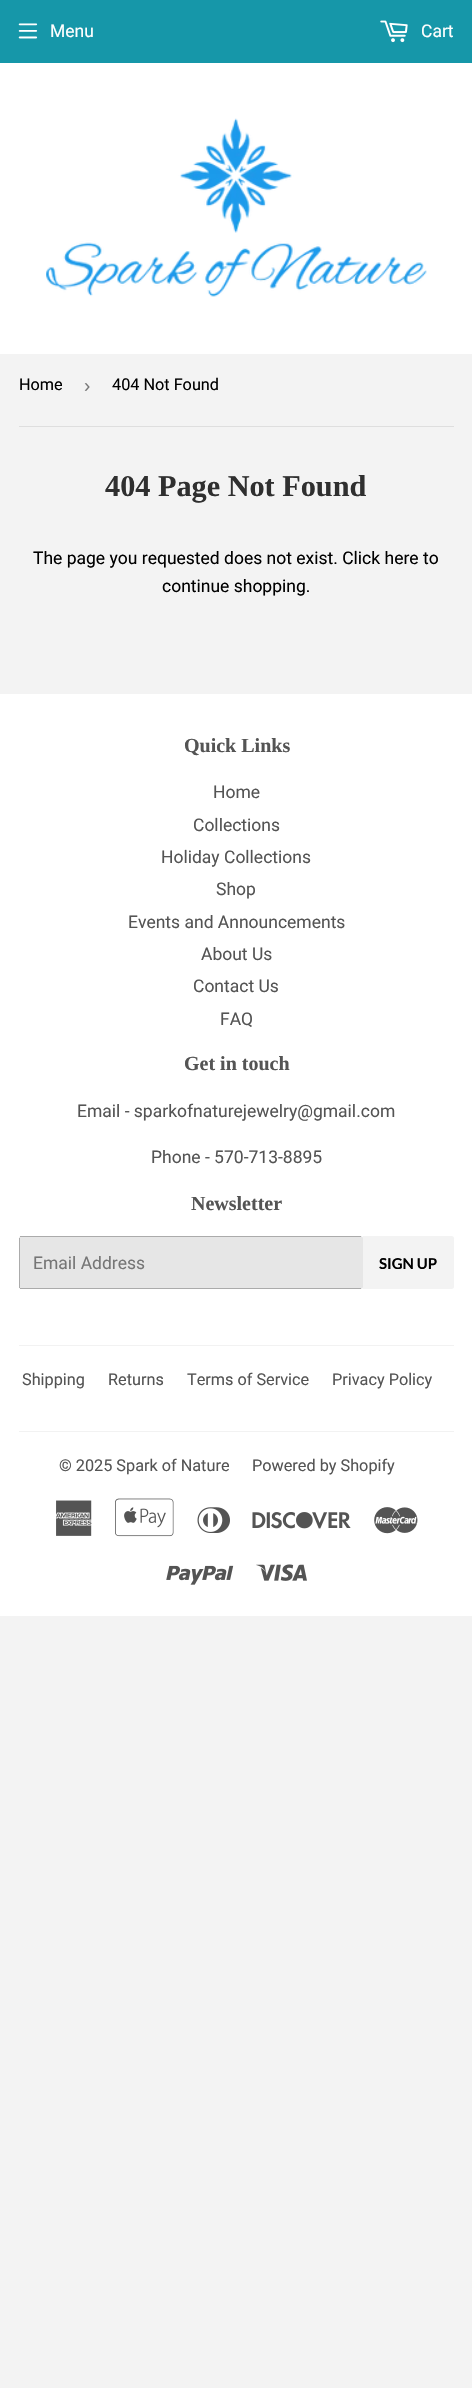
void draw(SkCanvas* canvas) {
    SkPaint paint;
    paint.setAntiAlias(true);
    canvas->clear(0xFFF3F3F3);
    paint.setColor(0xFF1697A9);
    canvas->drawRect(SkRect::MakeXYWH(0, 0, 472, 63), paint);
    canvas->drawImageRect(SkImages::DeferredFromEncodedData(SkData::MakeFromFileName("img1.png")), SkRect::MakeXYWH(18, 23, 20, 16), SkSamplingOptions());
    SkFont font1(fontMgr->matchFamilyStyle("Roboto", SkFontStyle::Normal()), 17.5f);
    font1.setSubpixel(true);
    paint.setColor(0xFFFFFFFF);
    canvas->drawString("Menu", 50, 37, font1, paint);
    canvas->drawImageRect(SkImages::DeferredFromEncodedData(SkData::MakeFromFileName("img2.png")), SkRect::MakeXYWH(380, 20, 28, 23), SkSamplingOptions());
    canvas->drawString("Cart", 421, 37, font1, paint);
    canvas->drawRect(SkRect::MakeXYWH(0, 63, 472, 291), paint);
    canvas->drawImageRect(SkImages::DeferredFromEncodedData(SkData::MakeFromFileName("img3.png")), SkRect::MakeXYWH(46, 118, 381, 179), SkSamplingOptions());
    paint.setColor(0xFFDEDEDE);
    canvas->drawRect(SkRect::MakeXYWH(19, 426, 435, 1), paint);
    SkFont font2(fontMgr->matchFamilyStyle("Roboto", SkFontStyle::Normal()), 16.25f);
    font2.setSubpixel(true);
    paint.setColor(0xFF000000);
    canvas->drawString("Home", 19, 390, font2, paint);
    SkFont font3(fontMgr->matchFamilyStyle("Liberation Sans", SkFontStyle::Normal()), 19);
    font3.setSubpixel(true);
    paint.setColor(0xFF767676);
    canvas->drawString("›", 84, 392, font3, paint);
    paint.setColor(0xFF000000);
    canvas->drawString("404 Not Found", 112, 390, font2, paint);
    SkFont font4(fontMgr->matchFamilyStyle("Liberation Serif", SkFontStyle::Bold()), 30.25f);
    font4.setSubpixel(true);
    paint.setColor(0xFF2F2F2F);
    canvas->drawString("404 Page Not Found", 105, 496, font4, paint);
    paint.setColor(0xFF000000);
    canvas->drawString("The page you requested does not exist. Click here to", 33, 564, font1, paint);
    canvas->drawString("continue shopping.", 162, 592, font1, paint);
    paint.setColor(0xFFFFFFFF);
    canvas->drawRect(SkRect::MakeXYWH(0, 694, 472, 922), paint);
    SkFont font5(fontMgr->matchFamilyStyle("Liberation Serif", SkFontStyle::Bold()), 20);
    font5.setSubpixel(true);
    paint.setColor(0xFF545454);
    canvas->drawString("Quick Links", 184, 752, font5, paint);
    canvas->drawString("Home", 213, 798, font1, paint);
    canvas->drawString("Collections", 193, 831, font1, paint);
    canvas->drawString("Holiday Collections", 161, 863, font1, paint);
    canvas->drawString("Shop", 216, 895, font1, paint);
    canvas->drawString("Events and Announcements", 128, 928, font1, paint);
    canvas->drawString("About Us", 201, 960, font1, paint);
    canvas->drawString("Contact Us", 193, 992, font1, paint);
    canvas->drawString("FAQ", 220, 1025, font1, paint);
    canvas->drawString("Get in touch", 184, 1070, font5, paint);
    canvas->drawString("Email - sparkofnaturejewelry@gmail.com", 77, 1117, font1, paint);
    canvas->drawString("Phone - 570-713-8895", 151, 1163, font1, paint);
    canvas->drawString("Newsletter", 191, 1210, font5, paint);
    paint.setColor(0xFFE6E6E6);
    canvas->drawRoundRect(SkRect::MakeXYWH(19, 1236, 344, 53), 2.5f, 2.5f, paint);
    paint.setColor(0xFFABABAB);
    canvas->drawRect(SkRect::MakeXYWH(20, 1236, 341, 1), paint);
    canvas->drawRect(SkRect::MakeXYWH(20, 1288, 341, 1), paint);
    canvas->drawRect(SkRect::MakeXYWH(19, 1238, 1, 50), paint);
    paint.setColor(0xFF767676);
    canvas->drawString("Email Address", 33, 1269, font1, paint);
    paint.setColor(0xFFF3F3F3);
    canvas->drawPath(SkPathBuilder().moveTo(363, 1236).lineTo(451.5f, 1236).cubicTo(453, 1236, 454, 1237, 454, 1238.5f).lineTo(454, 1286.5f).cubicTo(454, 1288, 453, 1289, 451.5f, 1289).lineTo(363, 1289).close().detach(), paint);
    SkFont font6(fontMgr->matchFamilyStyle("Lato", SkFontStyle::Bold()), 15);
    font6.setSubpixel(true);
    paint.setColor(0xFF000000);
    canvas->drawString("SIGN UP", 379, 1269, font6, paint);
    paint.setColor(0xFFF2F2F2);
    canvas->drawRect(SkRect::MakeXYWH(19, 1345, 435, 1), paint);
    paint.setColor(0xFF545454);
    canvas->drawString("Shipping", 22, 1385, font2, paint);
    canvas->drawString("Returns", 108, 1385, font2, paint);
    canvas->drawString("Terms of Service", 187, 1385, font2, paint);
    canvas->drawString("Privacy Policy", 332, 1385, font2, paint);
    paint.setColor(0xFFF2F2F2);
    canvas->drawRect(SkRect::MakeXYWH(19, 1431, 435, 1), paint);
    paint.setColor(0xFF545454);
    canvas->drawString("© 2025 Spark of Nature", 59, 1471, font2, paint);
    canvas->drawString("Powered by Shopify", 252, 1471, font2, paint);
    canvas->drawImageRect(SkImages::DeferredFromEncodedData(SkData::MakeFromFileName("img4.png")), SkRect::MakeXYWH(56, 1500, 36, 36), SkSamplingOptions());
    canvas->drawImageRect(SkImages::DeferredFromEncodedData(SkData::MakeFromFileName("img5.png")), SkRect::MakeXYWH(115, 1498, 59, 39), SkSamplingOptions());
    canvas->drawImageRect(SkImages::DeferredFromEncodedData(SkData::MakeFromFileName("img6.png")), SkRect::MakeXYWH(197, 1507, 33, 26), SkSamplingOptions());
    canvas->drawImageRect(SkImages::DeferredFromEncodedData(SkData::MakeFromFileName("img7.png")), SkRect::MakeXYWH(252, 1512, 99, 17), SkSamplingOptions());
    canvas->drawImageRect(SkImages::DeferredFromEncodedData(SkData::MakeFromFileName("img8.png")), SkRect::MakeXYWH(374, 1507, 44, 27), SkSamplingOptions());
    canvas->drawImageRect(SkImages::DeferredFromEncodedData(SkData::MakeFromFileName("img9.png")), SkRect::MakeXYWH(166, 1565, 68, 20), SkSamplingOptions());
    canvas->drawImageRect(SkImages::DeferredFromEncodedData(SkData::MakeFromFileName("img10.png")), SkRect::MakeXYWH(256, 1564, 51, 17), SkSamplingOptions());
}
